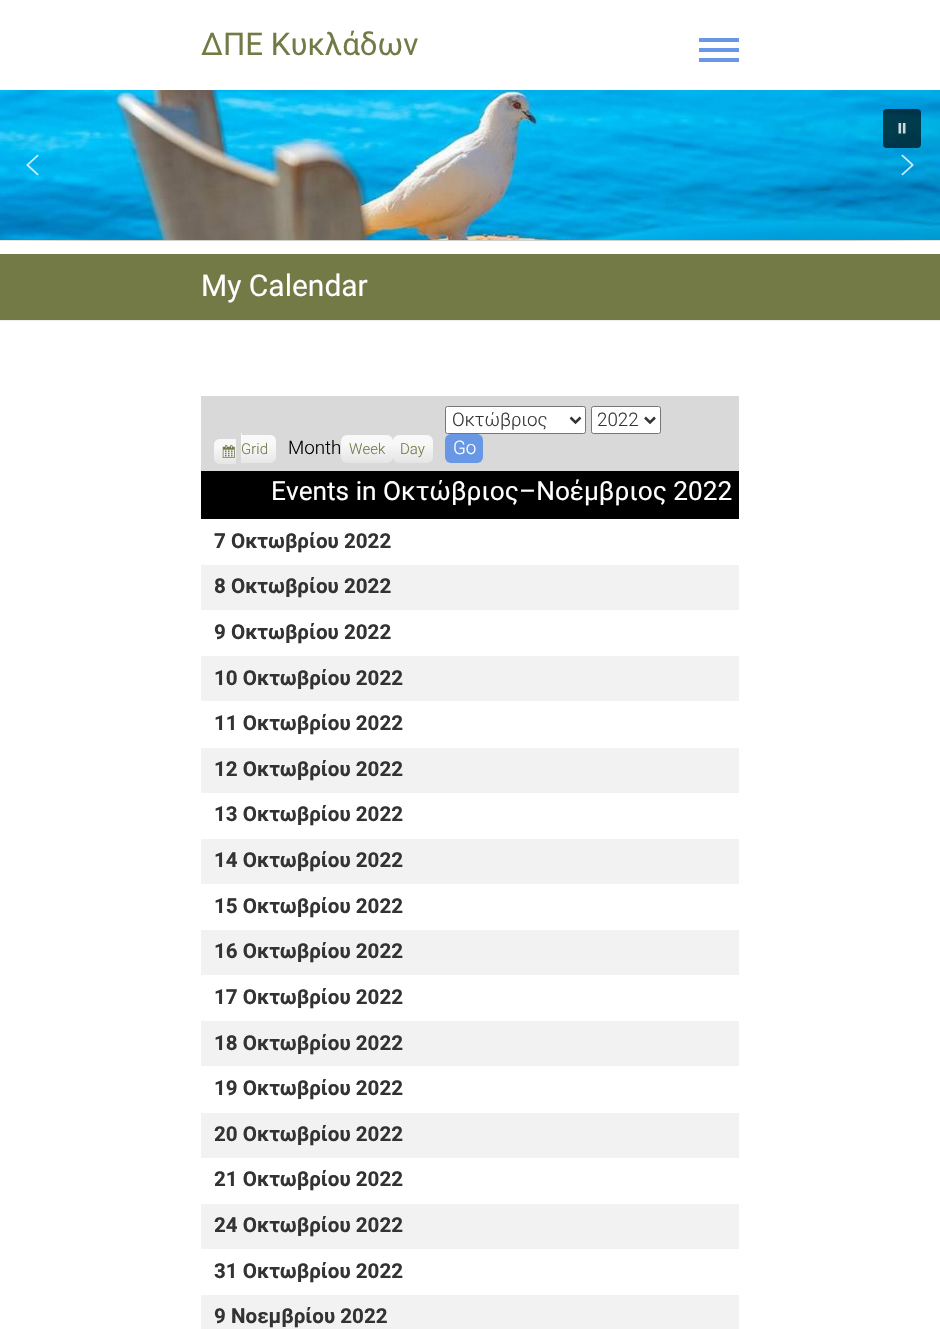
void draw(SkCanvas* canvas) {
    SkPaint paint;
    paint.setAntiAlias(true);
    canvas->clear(0xFFFFFFFF);
    SkFont font1(fontMgr->matchFamilyStyle("Roboto", SkFontStyle::Normal()), 31.25f);
    font1.setSubpixel(true);
    paint.setColor(0xFF737A46);
    canvas->drawString("ΔΠΕ Κυκλάδων", 201, 55, font1, paint);
    paint.setColor(0xFF6897E5);
    canvas->drawRect(SkRect::MakeXYWH(699, 38, 40, 4), paint);
    canvas->drawRect(SkRect::MakeXYWH(699, 48, 40, 4), paint);
    canvas->drawRect(SkRect::MakeXYWH(699, 58, 40, 4), paint);
    canvas->drawImageRect(SkImages::DeferredFromEncodedData(SkData::MakeFromFileName("img1.png")), SkRect::MakeXYWH(0, 90, 940, 150), SkSamplingOptions());
    paint.setColor(0xAB000000);
    canvas->drawRoundRect(SkRect::MakeXYWH(883, 109, 38, 39), 4, 4, paint);
    canvas->drawImageRect(SkImages::DeferredFromEncodedData(SkData::MakeFromFileName("img2.png")), SkRect::MakeXYWH(898, 123, 8, 11), SkSamplingOptions());
    canvas->drawImageRect(SkImages::DeferredFromEncodedData(SkData::MakeFromFileName("img3.png")), SkRect::MakeXYWH(26, 154, 13, 22), SkSamplingOptions());
    canvas->drawImageRect(SkImages::DeferredFromEncodedData(SkData::MakeFromFileName("img4.png")), SkRect::MakeXYWH(901, 154, 13, 22), SkSamplingOptions());
    {
        const SkColor colors[] = {0xFFE6E6E6, 0xFFCFCFCF, 0xFFCFCFCF, 0xFFE6E6E6};
        const float stops[] = {0, 0.1f, 0.9f, 1};
        const SkPoint ends[] = {{0, 241}, {940, 241}};
        paint.setShader(SkGradientShader::MakeLinear(ends, colors, stops, 4, SkTileMode::kClamp));
        paint.setAlpha(255);
    }
    canvas->drawRect(SkRect::MakeXYWH(0, 240, 940, 1), paint);
    paint.setShader(nullptr);
    paint.setColor(0xFF737A46);
    canvas->drawRect(SkRect::MakeXYWH(0, 254, 940, 66), paint);
    paint.setColor(0xFFEEEEEE);
    canvas->drawRect(SkRect::MakeXYWH(0, 320, 940, 1), paint);
    SkFont font2(fontMgr->matchFamilyStyle("Roboto", SkFontStyle::Normal()), 30);
    font2.setSubpixel(true);
    paint.setColor(0xFFFFFFFF);
    canvas->drawString("My Calendar", 201, 296, font2, paint);
    paint.setColor(0xFFD9D9D9);
    canvas->drawRect(SkRect::MakeXYWH(201, 396, 538, 75), paint);
    {
        const SkColor colors[] = {0xFFE5E5E5, 0xFFF8F8F8};
        const float stops[] = {0, 0.7f};
        const SkPoint ends[] = {{225, 464}, {225, 439}};
        paint.setShader(SkGradientShader::MakeLinear(ends, colors, stops, 2, SkTileMode::kClamp));
        paint.setAlpha(255);
    }
    canvas->drawPath(SkPathBuilder().moveTo(220, 439).lineTo(236, 439).lineTo(236, 464).lineTo(220, 464).cubicTo(216.5f, 464, 214, 461.5f, 214, 458).lineTo(214, 445).cubicTo(214, 441.5f, 216.5f, 439, 220, 439).close().detach(), paint);
    canvas->drawImageRect(SkImages::DeferredFromEncodedData(SkData::MakeFromFileName("img5.png")), SkRect::MakeXYWH(222, 444, 13, 14), SkSamplingOptions());
    {
        const SkColor colors[] = {0xFFE5E5E5, 0xFFF8F8F8};
        const float stops[] = {0, 0.7f};
        const SkPoint ends[] = {{242, 444}, {242, 433}};
        paint.setShader(SkGradientShader::MakeLinear(ends, colors, stops, 2, SkTileMode::kClamp));
        paint.setAlpha(255);
    }
    canvas->drawRect(SkRect::MakeXYWH(241, 433, 1, 11), paint);
    {
        const SkColor colors[] = {0xF2E6E6E6, 0xF2FAFAFA};
        const float stops[] = {0, 0.7f};
        const SkPoint ends[] = {{259, 463}, {259, 435}};
        paint.setShader(SkGradientShader::MakeLinear(ends, colors, stops, 2, SkTileMode::kClamp));
        paint.setAlpha(255);
    }
    canvas->drawPath(SkPathBuilder().moveTo(241, 435).lineTo(270, 435).cubicTo(273.5f, 435, 276, 437.5f, 276, 441).lineTo(276, 457).cubicTo(276, 460.5f, 273.5f, 463, 270, 463).lineTo(241, 463).close().detach(), paint);
    SkFont font3(fontMgr->matchFamilyStyle("Roboto", SkFontStyle(300, SkFontStyle::kNormal_Width, SkFontStyle::kUpright_Slant)), 15);
    font3.setSubpixel(true);
    paint.setShader(nullptr);
    paint.setColor(0xFF737A46);
    canvas->drawString("Grid", 241, 454, font3, paint);
    SkFont font4(fontMgr->matchFamilyStyle("Roboto", SkFontStyle(300, SkFontStyle::kNormal_Width, SkFontStyle::kUpright_Slant)), 18.75f);
    font4.setSubpixel(true);
    paint.setColor(0xFF000000);
    canvas->drawString("Month", 288, 454, font4, paint);
    {
        const SkColor colors[] = {0xFFE5E5E5, 0xFFF8F8F8};
        const float stops[] = {0, 0.7f};
        const SkPoint ends[] = {{367, 463}, {367, 435}};
        paint.setShader(SkGradientShader::MakeLinear(ends, colors, stops, 2, SkTileMode::kClamp));
        paint.setAlpha(255);
    }
    canvas->drawRoundRect(SkRect::MakeXYWH(341, 435, 52, 28), 6, 6, paint);
    paint.setShader(nullptr);
    paint.setColor(0xFF737A46);
    canvas->drawString("Week", 349, 454, font3, paint);
    {
        const SkColor colors[] = {0xFFE5E5E5, 0xFFF8F8F8};
        const float stops[] = {0, 0.7f};
        const SkPoint ends[] = {{413, 463}, {413, 435}};
        paint.setShader(SkGradientShader::MakeLinear(ends, colors, stops, 2, SkTileMode::kClamp));
        paint.setAlpha(255);
    }
    canvas->drawRoundRect(SkRect::MakeXYWH(393, 435, 40, 28), 6, 6, paint);
    paint.setShader(nullptr);
    paint.setColor(0xFF737A46);
    canvas->drawString("Day", 400, 454, font3, paint);
    paint.setColor(0xFFFFFFFF);
    canvas->drawRoundRect(SkRect::MakeXYWH(445.5f, 406.5f, 140, 27), 2, 2, paint);
    paint.setStyle(SkPaint::kStroke_Style);
    paint.setStrokeWidth(1);
    paint.setColor(0xFF767676);
    canvas->drawRoundRect(SkRect::MakeXYWH(445.5f, 406.5f, 140, 27), 2, 2, paint);
    paint.setStrokeWidth(2.5f);
    paint.setColor(0xFF333333);
    canvas->drawPath(SkPathBuilder().moveTo(570.5f, 417.5f).lineTo(575.5f, 422.5f).lineTo(580.5f, 417.5f).detach(), paint);
    paint.setStyle(SkPaint::kFill_Style);
    canvas->drawString("Οκτώβριος", 452, 426, font4, paint);
    paint.setColor(0xFFFFFFFF);
    canvas->drawRoundRect(SkRect::MakeXYWH(591.5f, 406.5f, 69, 27), 2, 2, paint);
    paint.setStyle(SkPaint::kStroke_Style);
    paint.setStrokeWidth(1);
    paint.setColor(0xFF767676);
    canvas->drawRoundRect(SkRect::MakeXYWH(591.5f, 406.5f, 69, 27), 2, 2, paint);
    paint.setStrokeWidth(2.5f);
    paint.setColor(0xFF333333);
    canvas->drawPath(SkPathBuilder().moveTo(645, 417.5f).lineTo(650, 422.5f).lineTo(655, 417.5f).detach(), paint);
    paint.setStyle(SkPaint::kFill_Style);
    canvas->drawString("2022", 597, 426, font4, paint);
    paint.setColor(0xFF6897E5);
    canvas->drawRoundRect(SkRect::MakeXYWH(445, 434, 38, 29), 6, 6, paint);
    paint.setColor(0xFFFFFFFF);
    canvas->drawString("Go", 453, 454, font4, paint);
    paint.setColor(0xFF000000);
    canvas->drawRect(SkRect::MakeXYWH(201, 471, 538, 48), paint);
    SkFont font5(fontMgr->matchFamilyStyle("Roboto", SkFontStyle::Normal()), 26.25f);
    font5.setSubpixel(true);
    paint.setColor(0xFFFFFFFF);
    canvas->drawString("Events in Οκτώβριος–Νοέμβριος 2022", 271, 500, font5, paint);
    SkFont font6(fontMgr->matchFamilyStyle("Roboto", SkFontStyle::Bold()), 20.6f);
    font6.setSubpixel(true);
    paint.setColor(0xFF333333);
    canvas->drawString("7 Οκτωβρίου 2022", 214, 548, font6, paint);
    paint.setColor(0xFFF2F2F2);
    canvas->drawRect(SkRect::MakeXYWH(201, 565, 538, 45), paint);
    paint.setColor(0xFF333333);
    canvas->drawString("8 Οκτωβρίου 2022", 214, 593, font6, paint);
    canvas->drawString("9 Οκτωβρίου 2022", 214, 639, font6, paint);
    paint.setColor(0xFFF2F2F2);
    canvas->drawRect(SkRect::MakeXYWH(201, 656, 538, 45), paint);
    paint.setColor(0xFF333333);
    canvas->drawString("10 Οκτωβρίου 2022", 214, 685, font6, paint);
    canvas->drawString("11 Οκτωβρίου 2022", 214, 730, font6, paint);
    paint.setColor(0xFFF2F2F2);
    canvas->drawRect(SkRect::MakeXYWH(201, 748, 538, 45), paint);
    paint.setColor(0xFF333333);
    canvas->drawString("12 Οκτωβρίου 2022", 214, 776, font6, paint);
    canvas->drawString("13 Οκτωβρίου 2022", 214, 821, font6, paint);
    paint.setColor(0xFFF2F2F2);
    canvas->drawRect(SkRect::MakeXYWH(201, 839, 538, 45), paint);
    paint.setColor(0xFF333333);
    canvas->drawString("14 Οκτωβρίου 2022", 214, 867, font6, paint);
    canvas->drawString("15 Οκτωβρίου 2022", 214, 913, font6, paint);
    paint.setColor(0xFFF2F2F2);
    canvas->drawRect(SkRect::MakeXYWH(201, 930, 538, 45), paint);
    paint.setColor(0xFF333333);
    canvas->drawString("16 Οκτωβρίου 2022", 214, 958, font6, paint);
    canvas->drawString("17 Οκτωβρίου 2022", 214, 1004, font6, paint);
    paint.setColor(0xFFF2F2F2);
    canvas->drawRect(SkRect::MakeXYWH(201, 1021, 538, 45), paint);
    paint.setColor(0xFF333333);
    canvas->drawString("18 Οκτωβρίου 2022", 214, 1050, font6, paint);
    canvas->drawString("19 Οκτωβρίου 2022", 214, 1095, font6, paint);
    paint.setColor(0xFFF2F2F2);
    canvas->drawRect(SkRect::MakeXYWH(201, 1113, 538, 45), paint);
    paint.setColor(0xFF333333);
    canvas->drawString("20 Οκτωβρίου 2022", 214, 1141, font6, paint);
    canvas->drawString("21 Οκτωβρίου 2022", 214, 1186, font6, paint);
    paint.setColor(0xFFF2F2F2);
    canvas->drawRect(SkRect::MakeXYWH(201, 1204, 538, 45), paint);
    paint.setColor(0xFF333333);
    canvas->drawString("24 Οκτωβρίου 2022", 214, 1232, font6, paint);
    canvas->drawString("31 Οκτωβρίου 2022", 214, 1278, font6, paint);
    paint.setColor(0xFFF2F2F2);
    canvas->drawRect(SkRect::MakeXYWH(201, 1295, 538, 34), paint);
    paint.setColor(0xFF333333);
    canvas->drawString("9 Νοεμβρίου 2022", 214, 1323, font6, paint);
}
